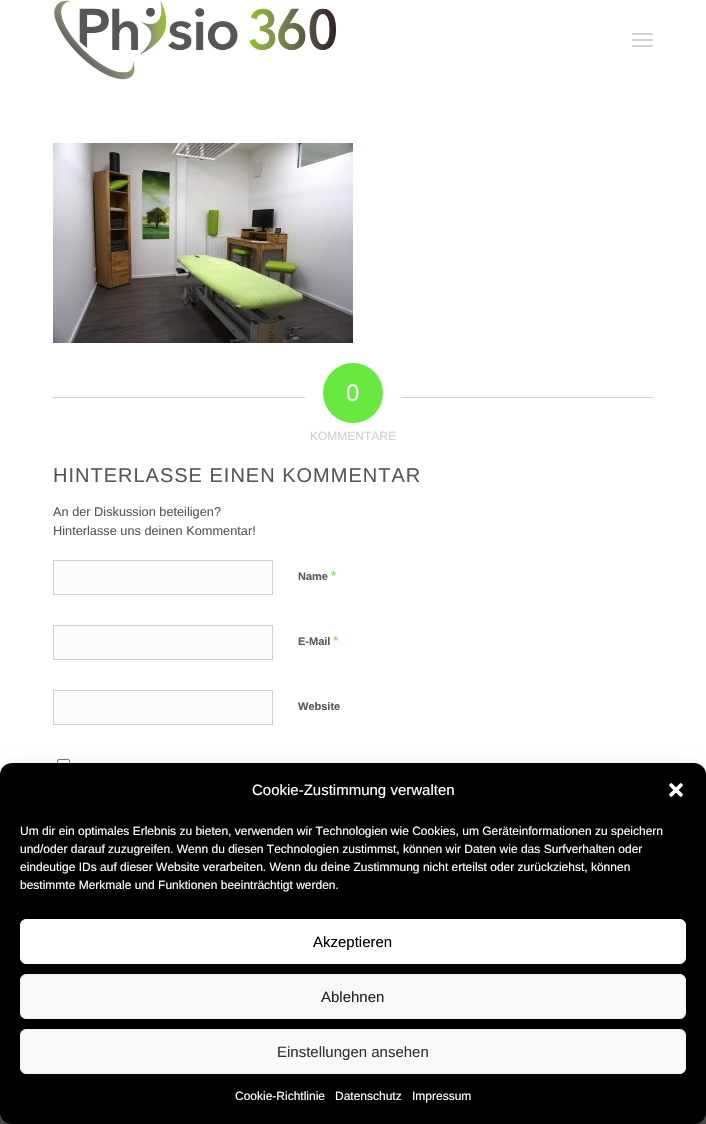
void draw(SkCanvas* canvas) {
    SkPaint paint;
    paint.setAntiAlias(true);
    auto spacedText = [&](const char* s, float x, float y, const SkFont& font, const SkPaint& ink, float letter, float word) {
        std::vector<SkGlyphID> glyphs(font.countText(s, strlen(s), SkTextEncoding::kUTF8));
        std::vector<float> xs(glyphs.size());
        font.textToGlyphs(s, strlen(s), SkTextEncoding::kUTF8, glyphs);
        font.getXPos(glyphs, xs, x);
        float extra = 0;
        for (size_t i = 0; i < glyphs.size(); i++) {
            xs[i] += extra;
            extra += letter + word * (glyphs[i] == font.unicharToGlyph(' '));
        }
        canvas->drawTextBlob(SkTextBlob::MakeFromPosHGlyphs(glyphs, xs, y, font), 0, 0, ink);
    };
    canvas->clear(0xFFFFFFFF);
    canvas->drawImageRect(SkImages::DeferredFromEncodedData(SkData::MakeFromFileName("img1.png")), SkRect::MakeXYWH(54, 0, 282, 80), SkSamplingOptions());
    paint.setColor(0xFFD0D0D0);
    canvas->drawRoundRect(SkRect::MakeXYWH(632, 39, 21, 2), 1, 1, paint);
    canvas->drawRoundRect(SkRect::MakeXYWH(632, 33, 21, 2), 1, 1, paint);
    canvas->drawRoundRect(SkRect::MakeXYWH(632, 45, 21, 2), 1, 1, paint);
    canvas->drawImageRect(SkImages::DeferredFromEncodedData(SkData::MakeFromFileName("img2.png")), SkRect::MakeXYWH(53, 143, 300, 200), SkSamplingOptions());
    canvas->drawRect(SkRect::MakeXYWH(53, 397, 252, 1), paint);
    paint.setColor(0xFF69E83F);
    canvas->drawCircle(353, 393, 30, paint);
    SkFont font1(fontMgr->matchFamilyStyle("Liberation Sans", SkFontStyle::Normal()), 24);
    font1.setSubpixel(true);
    paint.setColor(0xFFFFFFFF);
    canvas->drawString("0", 346, 401, font1, paint);
    paint.setColor(0xFFD0D0D0);
    canvas->drawRect(SkRect::MakeXYWH(401, 397, 252, 1), paint);
    SkFont font2(fontMgr->matchFamilyStyle("Liberation Sans", SkFontStyle::Normal()), 12);
    font2.setSubpixel(true);
    canvas->drawString("KOMMENTARE", 310, 440, font2, paint);
    SkFont font3(fontMgr->matchFamilyStyle("Liberation Sans", SkFontStyle::Normal()), 20);
    font3.setSubpixel(true);
    paint.setColor(0xFF575756);
    spacedText("HINTERLASSE EINEN KOMMENTAR", 53, 482, font3, paint, 1, 0);
    SkFont font4(fontMgr->matchFamilyStyle("Liberation Sans", SkFontStyle::Normal()), 12.75f);
    font4.setSubpixel(true);
    canvas->drawString("An der Diskussion beteiligen?", 53, 516, font4, paint);
    canvas->drawString("Hinterlasse uns deinen Kommentar!", 53, 535, font4, paint);
    paint.setColor(0xFFFCFCFC);
    canvas->drawRect(SkRect::MakeXYWH(53.5f, 560.5f, 219, 34), paint);
    paint.setStyle(SkPaint::kStroke_Style);
    paint.setStrokeWidth(1);
    paint.setColor(0xFFD0D0D0);
    canvas->drawRect(SkRect::MakeXYWH(53.5f, 560.5f, 219, 34), paint);
    SkFont font5(fontMgr->matchFamilyStyle("Liberation Sans", SkFontStyle::Bold()), 11);
    font5.setSubpixel(true);
    paint.setStyle(SkPaint::kFill_Style);
    paint.setColor(0xFF575756);
    canvas->drawString("Name", 298, 580, font5, paint);
    SkFont font6(fontMgr->matchFamilyStyle("Liberation Sans", SkFontStyle::Normal()), 13);
    font6.setSubpixel(true);
    paint.setColor(0xFF69E83F);
    canvas->drawString("*", 331, 580, font6, paint);
    paint.setColor(0xFFFCFCFC);
    canvas->drawRect(SkRect::MakeXYWH(53.5f, 625.5f, 219, 34), paint);
    paint.setStyle(SkPaint::kStroke_Style);
    paint.setColor(0xFFD0D0D0);
    canvas->drawRect(SkRect::MakeXYWH(53.5f, 625.5f, 219, 34), paint);
    paint.setStyle(SkPaint::kFill_Style);
    paint.setColor(0xFF575756);
    canvas->drawString("E-Mail", 298, 645, font5, paint);
    paint.setColor(0xFF69E83F);
    canvas->drawString("*", 333, 645, font6, paint);
    paint.setColor(0xFFFCFCFC);
    canvas->drawRect(SkRect::MakeXYWH(53.5f, 690.5f, 219, 34), paint);
    paint.setStyle(SkPaint::kStroke_Style);
    paint.setColor(0xFFD0D0D0);
    canvas->drawRect(SkRect::MakeXYWH(53.5f, 690.5f, 219, 34), paint);
    paint.setStyle(SkPaint::kFill_Style);
    paint.setColor(0xFF575756);
    canvas->drawString("Website", 298, 710, font5, paint);
    paint.setStyle(SkPaint::kStroke_Style);
    paint.setColor(0xFF767676);
    canvas->drawRoundRect(SkRect::MakeXYWH(57.5f, 759.5f, 12, 12), 1.5f, 1.5f, paint);
    paint.setStyle(SkPaint::kFill_Style);
    paint.setColor(0xFF575756);
    canvas->drawRect(SkRect::MakeXYWH(0, 1112, 706, 12), paint);
    paint.setColor(0x3B000000);
    paint.setMaskFilter(SkMaskFilter::MakeBlur(kNormal_SkBlurStyle, 3));
    canvas->drawRoundRect(SkRect::MakeXYWH(0, 769, 706, 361), 12, 12, paint);
    paint.setMaskFilter(nullptr);
    paint.setColor(0x30000000);
    paint.setMaskFilter(SkMaskFilter::MakeBlur(kNormal_SkBlurStyle, 10));
    canvas->drawRoundRect(SkRect::MakeXYWH(0, 773, 706, 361), 12, 12, paint);
    paint.setMaskFilter(nullptr);
    paint.setColor(0xFF000000);
    canvas->drawRoundRect(SkRect::MakeXYWH(0, 763, 706, 361), 12, 12, paint);
    SkFont font7(fontMgr->matchFamilyStyle("Liberation Sans", SkFontStyle::Normal()), 15);
    font7.setSubpixel(true);
    paint.setColor(0xFFFFFFFF);
    canvas->drawString("Cookie-Zustimmung verwalten", 252, 795, font7, paint);
    canvas->drawImageRect(SkImages::DeferredFromEncodedData(SkData::MakeFromFileName("img3.png")), SkRect::MakeXYWH(669, 783, 14, 14), SkSamplingOptions());
    canvas->drawString("Um dir ein optimales Erlebnis zu bieten, verwenden wir Technologien wie Cookies, um Geräteinformationen zu speichern", 20, 835, font2, paint);
    canvas->drawString("und/oder darauf zuzugreifen. Wenn du diesen Technologien zustimmst, können wir Daten wie das Surfverhalten oder", 20, 853, font2, paint);
    canvas->drawString("eindeutige IDs auf dieser Website verarbeiten. Wenn du deine Zustimmung nicht erteilst oder zurückziehst, können", 20, 871, font2, paint);
    canvas->drawString("bestimmte Merkmale und Funktionen beeinträchtigt werden.", 20, 889, font2, paint);
    canvas->drawRoundRect(SkRect::MakeXYWH(20.5f, 919.5f, 665, 44), 5.5f, 5.5f, paint);
    paint.setStyle(SkPaint::kStroke_Style);
    canvas->drawRoundRect(SkRect::MakeXYWH(20.5f, 919.5f, 665, 44), 5.5f, 5.5f, paint);
    paint.setStyle(SkPaint::kFill_Style);
    paint.setColor(0xFF000000);
    canvas->drawString("Akzeptieren", 313, 947, font7, paint);
    paint.setColor(0xFFF9F9F9);
    canvas->drawRoundRect(SkRect::MakeXYWH(20.5f, 974.5f, 665, 44), 5.5f, 5.5f, paint);
    paint.setStyle(SkPaint::kStroke_Style);
    paint.setColor(0xFFF2F2F2);
    canvas->drawRoundRect(SkRect::MakeXYWH(20.5f, 974.5f, 665, 44), 5.5f, 5.5f, paint);
    paint.setStyle(SkPaint::kFill_Style);
    paint.setColor(0xFF222222);
    canvas->drawString("Ablehnen", 321, 1002, font7, paint);
    paint.setColor(0xFFF9F9F9);
    canvas->drawRoundRect(SkRect::MakeXYWH(20.5f, 1029.5f, 665, 44), 5.5f, 5.5f, paint);
    paint.setStyle(SkPaint::kStroke_Style);
    paint.setColor(0xFFF2F2F2);
    canvas->drawRoundRect(SkRect::MakeXYWH(20.5f, 1029.5f, 665, 44), 5.5f, 5.5f, paint);
    paint.setStyle(SkPaint::kFill_Style);
    paint.setColor(0xFF333333);
    canvas->drawString("Einstellungen ansehen", 277, 1057, font7, paint);
    paint.setColor(0xFFFFFFFF);
    canvas->drawString("Cookie-Richtlinie", 235, 1100, font2, paint);
    canvas->drawString("Datenschutz", 335, 1100, font2, paint);
    canvas->drawString("Impressum", 412, 1100, font2, paint);
}
